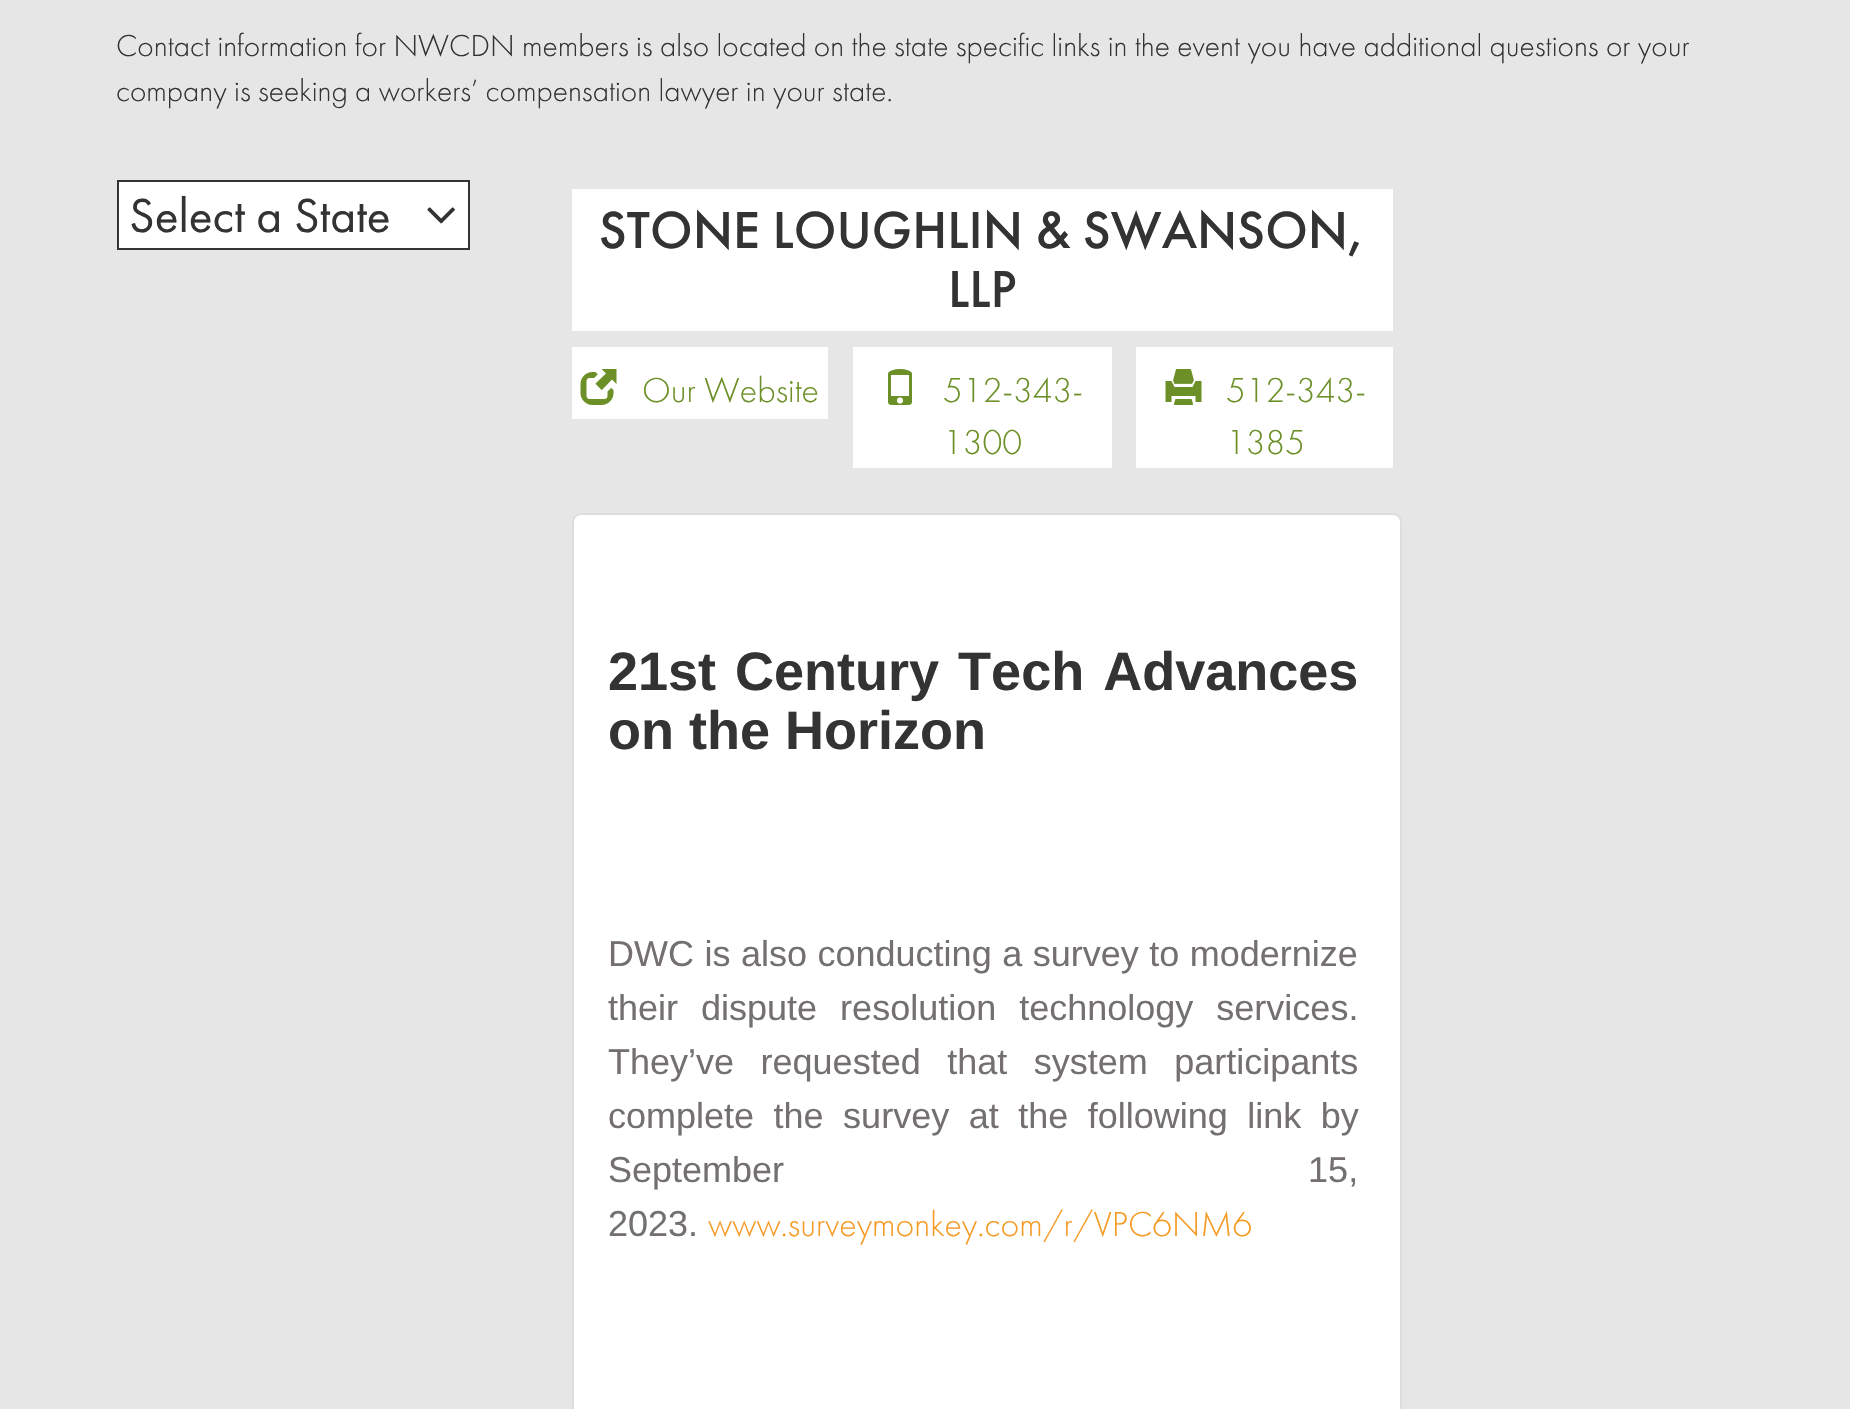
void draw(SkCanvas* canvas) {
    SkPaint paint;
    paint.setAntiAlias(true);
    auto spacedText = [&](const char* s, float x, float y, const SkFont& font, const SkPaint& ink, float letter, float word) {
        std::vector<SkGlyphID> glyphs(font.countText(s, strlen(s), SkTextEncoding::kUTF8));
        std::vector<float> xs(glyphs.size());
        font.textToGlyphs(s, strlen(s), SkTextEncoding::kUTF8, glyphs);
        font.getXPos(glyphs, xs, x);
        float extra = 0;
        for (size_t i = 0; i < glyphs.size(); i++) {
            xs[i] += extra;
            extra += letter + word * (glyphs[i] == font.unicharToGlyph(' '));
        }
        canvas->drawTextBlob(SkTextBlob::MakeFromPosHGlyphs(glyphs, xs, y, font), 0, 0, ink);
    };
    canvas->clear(0xFFE6E6E6);
    SkFont font1(fontMgr->matchFamilyStyle("Futura PT", SkFontStyle(300, SkFontStyle::kNormal_Width, SkFontStyle::kUpright_Slant)), 31.5f);
    font1.setSubpixel(true);
    paint.setColor(0xFF333333);
    canvas->drawString("Contact information for NWCDN members is also located on the state specific links in the event you have additional questions or your", 116, 56, font1, paint);
    canvas->drawString("company is seeking a workers’ compensation lawyer in your state.", 116, 101, font1, paint);
    paint.setColor(0xFFFFFFFF);
    canvas->drawRect(SkRect::MakeXYWH(118, 181, 351, 68), paint);
    paint.setStyle(SkPaint::kStroke_Style);
    paint.setStrokeWidth(2);
    paint.setColor(0xFF333333);
    canvas->drawRect(SkRect::MakeXYWH(118, 181, 351, 68), paint);
    SkFont font2(fontMgr->matchFamilyStyle("Futura PT", SkFontStyle::Normal()), 49.5f);
    font2.setSubpixel(true);
    paint.setStyle(SkPaint::kFill_Style);
    canvas->drawString("Select a State", 129, 232, font2, paint);
    canvas->drawImageRect(SkImages::DeferredFromEncodedData(SkData::MakeFromFileName("img1.png")), SkRect::MakeXYWH(427, 207, 28, 17), SkSamplingOptions());
    paint.setColor(0xFFFFFFFF);
    canvas->drawRect(SkRect::MakeXYWH(572, 189, 821, 142), paint);
    SkFont font3(fontMgr->matchFamilyStyle("Futura PT", SkFontStyle(500, SkFontStyle::kNormal_Width, SkFontStyle::kUpright_Slant)), 54);
    font3.setSubpixel(true);
    paint.setColor(0xFF333333);
    canvas->drawString("STONE LOUGHLIN & SWANSON,", 599, 248, font3, paint);
    canvas->drawString("LLP", 948, 307, font3, paint);
    paint.setColor(0xFFFFFFFF);
    canvas->drawRect(SkRect::MakeXYWH(572, 347, 256, 72), paint);
    canvas->drawImageRect(SkImages::DeferredFromEncodedData(SkData::MakeFromFileName("img2.png")), SkRect::MakeXYWH(580, 369, 37, 36), SkSamplingOptions());
    SkFont font4(fontMgr->matchFamilyStyle("Futura PT", SkFontStyle(300, SkFontStyle::kNormal_Width, SkFontStyle::kUpright_Slant)), 36);
    font4.setSubpixel(true);
    paint.setColor(0xFF6C9027);
    canvas->drawString("Our Website", 642, 402, font4, paint);
    paint.setColor(0xFFFFFFFF);
    canvas->drawRect(SkRect::MakeXYWH(853, 347, 259, 121), paint);
    canvas->drawImageRect(SkImages::DeferredFromEncodedData(SkData::MakeFromFileName("img3.png")), SkRect::MakeXYWH(888, 369, 24, 36), SkSamplingOptions());
    paint.setColor(0xFF6C9027);
    canvas->drawString("512-343-", 943, 402, font4, paint);
    canvas->drawString("1300", 943, 454, font4, paint);
    paint.setColor(0xFFFFFFFF);
    canvas->drawRect(SkRect::MakeXYWH(1136, 347, 257, 121), paint);
    canvas->drawImageRect(SkImages::DeferredFromEncodedData(SkData::MakeFromFileName("img4.png")), SkRect::MakeXYWH(1165, 369, 37, 36), SkSamplingOptions());
    paint.setColor(0xFF6C9027);
    canvas->drawString("512-343-", 1226, 402, font4, paint);
    canvas->drawString("1385", 1226, 454, font4, paint);
    paint.setColor(0xFFFFFFFF);
    canvas->drawRoundRect(SkRect::MakeXYWH(573, 514, 828, 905), 8, 8, paint);
    paint.setStyle(SkPaint::kStroke_Style);
    paint.setColor(0xFFDDDDDD);
    canvas->drawRoundRect(SkRect::MakeXYWH(573, 514, 828, 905), 8, 8, paint);
    SkFont font5(fontMgr->matchFamilyStyle("Liberation Sans", SkFontStyle::Bold()), 54);
    font5.setSubpixel(true);
    paint.setStyle(SkPaint::kFill_Style);
    paint.setColor(0xFF333333);
    spacedText("21st Century Tech Advances", 608, 690, font5, paint, 0, 4);
    canvas->drawString("on the Horizon", 608, 749, font5, paint);
    SkFont font6(fontMgr->matchFamilyStyle("Liberation Sans", SkFontStyle::Normal()), 36);
    font6.setSubpixel(true);
    paint.setColor(0xFF747070);
    spacedText("DWC is also conducting a survey to modernize", 608, 966, font6, paint, 0, 0.5f);
    spacedText("their dispute resolution technology services.", 608, 1020, font6, paint, 0, 13);
    spacedText("They’ve requested that system participants", 608, 1074, font6, paint, 0, 16.5f);
    spacedText("complete the survey at the following link by", 608, 1128, font6, paint, 0, 9.5f);
    spacedText("September 15,", 608, 1182, font6, paint, 0, 514);
    canvas->drawString("2023.", 608, 1236, font6, paint);
    paint.setColor(0xFFF59A23);
    canvas->drawString("www.surveymonkey.com/r/VPC6NM6", 708, 1236, font4, paint);
}
